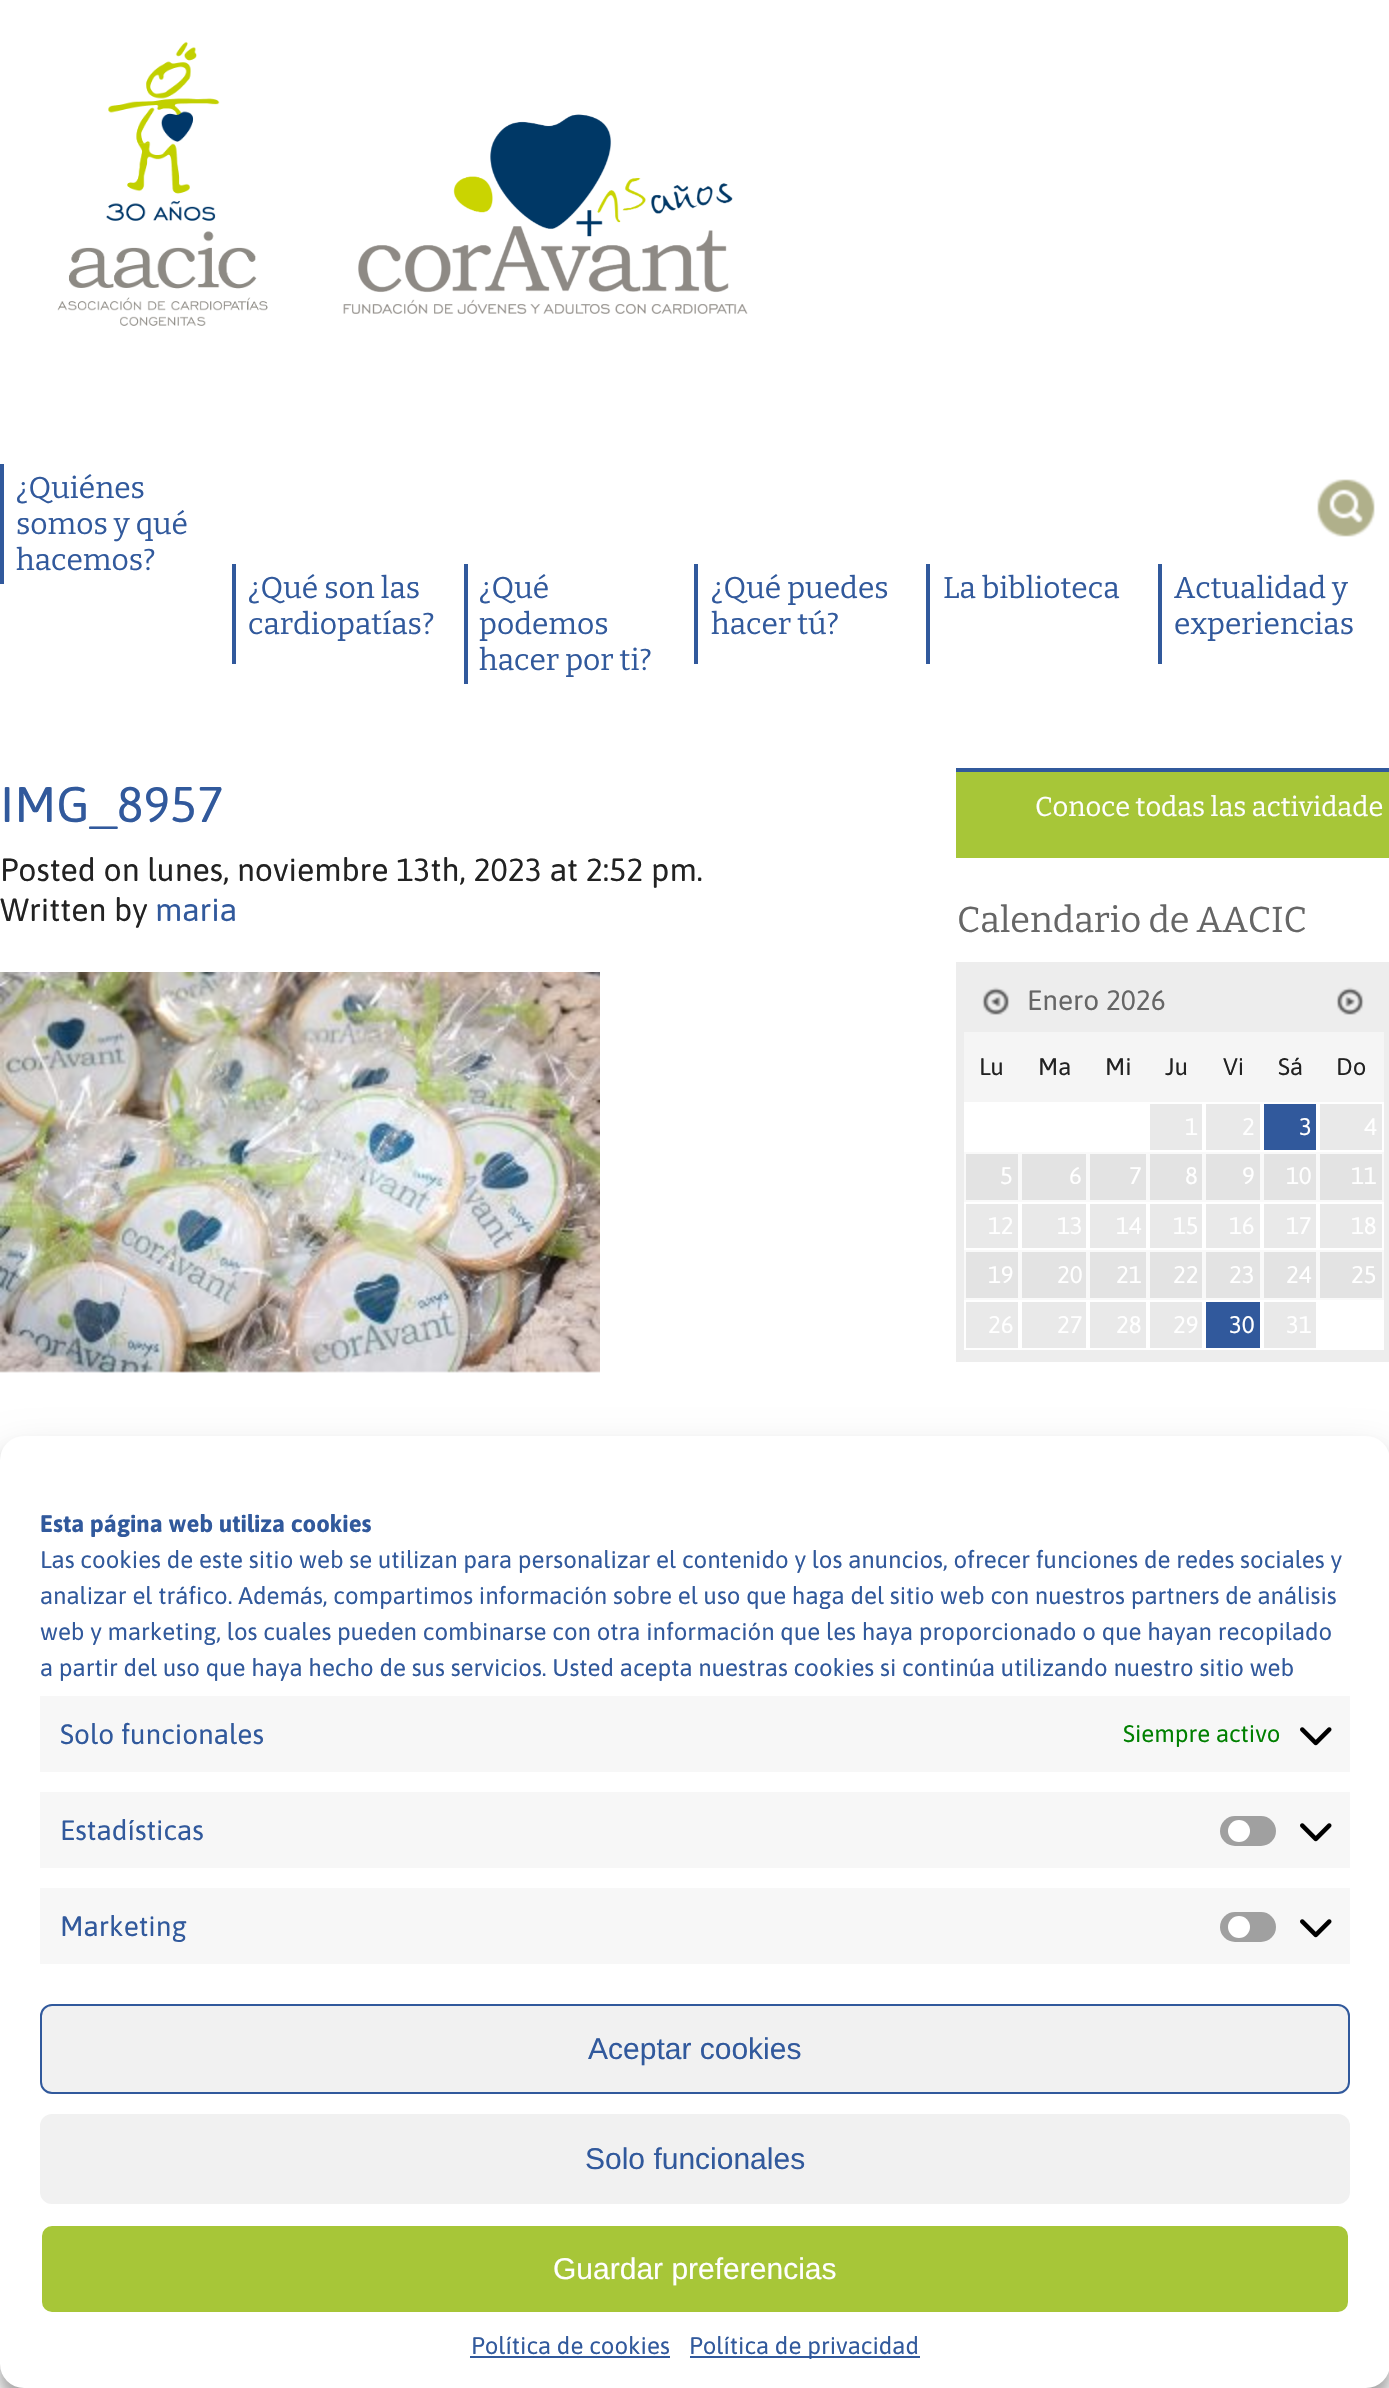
void draw(SkCanvas* canvas) {
    SkPaint paint;
    paint.setAntiAlias(true);
    canvas->clear(0xFFFFFFFF);
    canvas->drawImageRect(SkImages::DeferredFromEncodedData(SkData::MakeFromFileName("img1.png")), SkRect::MakeXYWH(57, 41, 211, 285), SkSamplingOptions());
    canvas->drawImageRect(SkImages::DeferredFromEncodedData(SkData::MakeFromFileName("img2.png")), SkRect::MakeXYWH(343, 114, 405, 200), SkSamplingOptions());
    canvas->drawImageRect(SkImages::DeferredFromEncodedData(SkData::MakeFromFileName("img3.png")), SkRect::MakeXYWH(1317, 479, 58, 58), SkSamplingOptions());
    paint.setColor(0xFF31599C);
    canvas->drawRect(SkRect::MakeXYWH(0, 464, 4, 120), paint);
    SkFont font1(fontMgr->matchFamilyStyle("Bitter", SkFontStyle::Normal()), 30);
    font1.setSubpixel(true);
    canvas->drawString("¿Quiénes", 16, 498, font1, paint);
    canvas->drawString("somos y qué", 16, 534, font1, paint);
    canvas->drawString("hacemos?", 16, 570, font1, paint);
    canvas->drawRect(SkRect::MakeXYWH(232, 564, 4, 100), paint);
    canvas->drawString("¿Qué son las", 248, 598, font1, paint);
    canvas->drawString("cardiopatías?", 248, 634, font1, paint);
    canvas->drawRect(SkRect::MakeXYWH(464, 564, 4, 120), paint);
    canvas->drawString("¿Qué", 479, 598, font1, paint);
    canvas->drawString("podemos", 479, 634, font1, paint);
    canvas->drawString("hacer por ti?", 479, 670, font1, paint);
    canvas->drawRect(SkRect::MakeXYWH(694, 564, 4, 100), paint);
    canvas->drawString("¿Qué puedes", 711, 598, font1, paint);
    canvas->drawString("hacer tú?", 711, 634, font1, paint);
    canvas->drawRect(SkRect::MakeXYWH(926, 564, 4, 100), paint);
    canvas->drawString("La biblioteca", 943, 598, font1, paint);
    canvas->drawRect(SkRect::MakeXYWH(1158, 564, 4, 100), paint);
    canvas->drawString("Actualidad y", 1174, 598, font1, paint);
    canvas->drawString("experiencias", 1174, 634, font1, paint);
    SkFont font2(fontMgr->matchFamilyStyle("Asap", SkFontStyle::Normal()), 50);
    font2.setSubpixel(true);
    canvas->drawString("IMG_8957", 0, 822, font2, paint);
    SkFont font3(fontMgr->matchFamilyStyle("Asap", SkFontStyle::Normal()), 32);
    font3.setSubpixel(true);
    paint.setColor(0xFF222222);
    canvas->drawString("Posted on lunes, noviembre 13th, 2023 at 2:52 pm.", 0, 881, font3, paint);
    canvas->drawString("Written by", 0, 921, font3, paint);
    paint.setColor(0xFF31599C);
    canvas->drawString("maria", 155, 921, font3, paint);
    canvas->drawImageRect(SkImages::DeferredFromEncodedData(SkData::MakeFromFileName("img4.png")), SkRect::MakeXYWH(0, 972, 600, 401), SkSamplingOptions());
    paint.setColor(0xFFA7C638);
    canvas->drawRect(SkRect::MakeXYWH(956, 772, 433, 86), paint);
    paint.setColor(0xFF31599C);
    canvas->drawRect(SkRect::MakeXYWH(956, 768, 433, 4), paint);
    SkFont font4(fontMgr->matchFamilyStyle("Bitter", SkFontStyle::Normal()), 27.25f);
    font4.setSubpixel(true);
    paint.setColor(0xFFFFFFFF);
    canvas->drawString("Conoce todas las actividade", 1035, 816, font4, paint);
    SkFont font5(fontMgr->matchFamilyStyle("Bitter", SkFontStyle::Normal()), 36);
    font5.setSubpixel(true);
    paint.setColor(0xFF666666);
    canvas->drawString("Calendario de AACIC", 957, 932, font5, paint);
    paint.setColor(0xFFEDEDED);
    canvas->drawRect(SkRect::MakeXYWH(956, 962, 433, 400), paint);
    canvas->drawImageRect(SkImages::DeferredFromEncodedData(SkData::MakeFromFileName("img5.png")), SkRect::MakeXYWH(982, 987, 28, 28), SkSamplingOptions());
    SkFont font6(fontMgr->matchFamilyStyle("Asap", SkFontStyle::Normal()), 28);
    font6.setSubpixel(true);
    paint.setColor(0xFF666666);
    canvas->drawString("Enero 2026", 1027, 1010, font6, paint);
    canvas->drawImageRect(SkImages::DeferredFromEncodedData(SkData::MakeFromFileName("img6.png")), SkRect::MakeXYWH(1336, 987, 28, 28), SkSamplingOptions());
    paint.setColor(0xFFFFFFFF);
    canvas->drawRect(SkRect::MakeXYWH(964, 1102, 420, 248), paint);
    paint.setColor(0xFFF5F5F5);
    canvas->drawRect(SkRect::MakeXYWH(964, 1032, 420, 70), paint);
    SkFont font7(fontMgr->matchFamilyStyle("Asap", SkFontStyle::Normal()), 24);
    font7.setSubpixel(true);
    paint.setColor(0xFF222222);
    canvas->drawString("Lu", 979, 1075, font7, paint);
    canvas->drawString("Ma", 1038, 1075, font7, paint);
    canvas->drawString("Mi", 1105, 1075, font7, paint);
    canvas->drawString("Ju", 1165, 1075, font7, paint);
    canvas->drawString("Vi", 1223, 1075, font7, paint);
    canvas->drawString("Sá", 1278, 1075, font7, paint);
    canvas->drawString("Do", 1336, 1075, font7, paint);
    paint.setColor(0xFFE9E9E9);
    canvas->drawRect(SkRect::MakeXYWH(1150, 1104, 52, 46), paint);
    paint.setColor(0xFFFFFFFF);
    canvas->drawString("1", 1185, 1135, font7, paint);
    paint.setColor(0xFFE9E9E9);
    canvas->drawRect(SkRect::MakeXYWH(1206, 1104, 54, 46), paint);
    paint.setColor(0xFFFFFFFF);
    canvas->drawString("2", 1242, 1135, font7, paint);
    paint.setColor(0xFF31599C);
    canvas->drawRect(SkRect::MakeXYWH(1264, 1104, 52, 46), paint);
    paint.setColor(0xFFFFFFFF);
    canvas->drawString("3", 1299, 1135, font7, paint);
    paint.setColor(0xFFE9E9E9);
    canvas->drawRect(SkRect::MakeXYWH(1320, 1104, 62, 46), paint);
    paint.setColor(0xFFFFFFFF);
    canvas->drawString("4", 1364, 1135, font7, paint);
    paint.setColor(0xFFF9F9F9);
    canvas->drawRect(SkRect::MakeXYWH(964, 1152, 420, 50), paint);
    paint.setColor(0xFFE3E3E3);
    canvas->drawRect(SkRect::MakeXYWH(966, 1154, 52, 46), paint);
    paint.setColor(0xFFFFFFFF);
    canvas->drawString("5", 1000, 1184, font7, paint);
    paint.setColor(0xFFE3E3E3);
    canvas->drawRect(SkRect::MakeXYWH(1022, 1154, 64, 46), paint);
    paint.setColor(0xFFFFFFFF);
    canvas->drawString("6", 1069, 1184, font7, paint);
    paint.setColor(0xFFE3E3E3);
    canvas->drawRect(SkRect::MakeXYWH(1090, 1154, 56, 46), paint);
    paint.setColor(0xFFFFFFFF);
    canvas->drawString("7", 1129, 1184, font7, paint);
    paint.setColor(0xFFE3E3E3);
    canvas->drawRect(SkRect::MakeXYWH(1150, 1154, 52, 46), paint);
    paint.setColor(0xFFFFFFFF);
    canvas->drawString("8", 1185, 1184, font7, paint);
    paint.setColor(0xFFE3E3E3);
    canvas->drawRect(SkRect::MakeXYWH(1206, 1154, 54, 46), paint);
    paint.setColor(0xFFFFFFFF);
    canvas->drawString("9", 1242, 1184, font7, paint);
    paint.setColor(0xFFE3E3E3);
    canvas->drawRect(SkRect::MakeXYWH(1264, 1154, 52, 46), paint);
    paint.setColor(0xFFFFFFFF);
    canvas->drawString("10", 1286, 1184, font7, paint);
    paint.setColor(0xFFE3E3E3);
    canvas->drawRect(SkRect::MakeXYWH(1320, 1154, 62, 46), paint);
    paint.setColor(0xFFFFFFFF);
    canvas->drawString("11", 1351, 1184, font7, paint);
    paint.setColor(0xFFE9E9E9);
    canvas->drawRect(SkRect::MakeXYWH(966, 1204, 52, 44), paint);
    paint.setColor(0xFFFFFFFF);
    canvas->drawString("12", 988, 1234, font7, paint);
    paint.setColor(0xFFE9E9E9);
    canvas->drawRect(SkRect::MakeXYWH(1022, 1204, 64, 44), paint);
    paint.setColor(0xFFFFFFFF);
    canvas->drawString("13", 1057, 1234, font7, paint);
    paint.setColor(0xFFE9E9E9);
    canvas->drawRect(SkRect::MakeXYWH(1090, 1204, 56, 44), paint);
    paint.setColor(0xFFFFFFFF);
    canvas->drawString("14", 1116, 1234, font7, paint);
    paint.setColor(0xFFE9E9E9);
    canvas->drawRect(SkRect::MakeXYWH(1150, 1204, 52, 44), paint);
    paint.setColor(0xFFFFFFFF);
    canvas->drawString("15", 1173, 1234, font7, paint);
    paint.setColor(0xFFE9E9E9);
    canvas->drawRect(SkRect::MakeXYWH(1206, 1204, 54, 44), paint);
    paint.setColor(0xFFFFFFFF);
    canvas->drawString("16", 1229, 1234, font7, paint);
    paint.setColor(0xFFE9E9E9);
    canvas->drawRect(SkRect::MakeXYWH(1264, 1204, 52, 44), paint);
    paint.setColor(0xFFFFFFFF);
    canvas->drawString("17", 1286, 1234, font7, paint);
    paint.setColor(0xFFE9E9E9);
    canvas->drawRect(SkRect::MakeXYWH(1320, 1204, 62, 44), paint);
    paint.setColor(0xFFFFFFFF);
    canvas->drawString("18", 1351, 1234, font7, paint);
    paint.setColor(0xFFF9F9F9);
    canvas->drawRect(SkRect::MakeXYWH(964, 1250, 420, 50), paint);
    paint.setColor(0xFFE3E3E3);
    canvas->drawRect(SkRect::MakeXYWH(966, 1252, 52, 46), paint);
    paint.setColor(0xFFFFFFFF);
    canvas->drawString("19", 988, 1283, font7, paint);
    paint.setColor(0xFFE3E3E3);
    canvas->drawRect(SkRect::MakeXYWH(1022, 1252, 64, 46), paint);
    paint.setColor(0xFFFFFFFF);
    canvas->drawString("20", 1057, 1283, font7, paint);
    paint.setColor(0xFFE3E3E3);
    canvas->drawRect(SkRect::MakeXYWH(1090, 1252, 56, 46), paint);
    paint.setColor(0xFFFFFFFF);
    canvas->drawString("21", 1116, 1283, font7, paint);
    paint.setColor(0xFFE3E3E3);
    canvas->drawRect(SkRect::MakeXYWH(1150, 1252, 52, 46), paint);
    paint.setColor(0xFFFFFFFF);
    canvas->drawString("22", 1173, 1283, font7, paint);
    paint.setColor(0xFFE3E3E3);
    canvas->drawRect(SkRect::MakeXYWH(1206, 1252, 54, 46), paint);
    paint.setColor(0xFFFFFFFF);
    canvas->drawString("23", 1229, 1283, font7, paint);
    paint.setColor(0xFFE3E3E3);
    canvas->drawRect(SkRect::MakeXYWH(1264, 1252, 52, 46), paint);
    paint.setColor(0xFFFFFFFF);
    canvas->drawString("24", 1286, 1283, font7, paint);
    paint.setColor(0xFFE3E3E3);
    canvas->drawRect(SkRect::MakeXYWH(1320, 1252, 62, 46), paint);
    paint.setColor(0xFFFFFFFF);
    canvas->drawString("25", 1351, 1283, font7, paint);
    paint.setColor(0xFFE9E9E9);
    canvas->drawRect(SkRect::MakeXYWH(966, 1302, 52, 46), paint);
    paint.setColor(0xFFFFFFFF);
    canvas->drawString("26", 988, 1333, font7, paint);
    paint.setColor(0xFFE9E9E9);
    canvas->drawRect(SkRect::MakeXYWH(1022, 1302, 64, 46), paint);
    paint.setColor(0xFFFFFFFF);
    canvas->drawString("27", 1057, 1333, font7, paint);
    paint.setColor(0xFFE9E9E9);
    canvas->drawRect(SkRect::MakeXYWH(1090, 1302, 56, 46), paint);
    paint.setColor(0xFFFFFFFF);
    canvas->drawString("28", 1116, 1333, font7, paint);
    paint.setColor(0xFFE9E9E9);
    canvas->drawRect(SkRect::MakeXYWH(1150, 1302, 52, 46), paint);
    paint.setColor(0xFFFFFFFF);
    canvas->drawString("29", 1173, 1333, font7, paint);
    paint.setColor(0xFF31599C);
    canvas->drawRect(SkRect::MakeXYWH(1206, 1302, 54, 46), paint);
    paint.setColor(0xFFFFFFFF);
    canvas->drawString("30", 1229, 1333, font7, paint);
    paint.setColor(0xFFE9E9E9);
    canvas->drawRect(SkRect::MakeXYWH(1264, 1302, 52, 46), paint);
    paint.setColor(0xFFFFFFFF);
    canvas->drawString("31", 1286, 1333, font7, paint);
    paint.setColor(0x3B000000);
    paint.setMaskFilter(SkMaskFilter::MakeBlur(kNormal_SkBlurStyle, 6));
    canvas->drawRoundRect(SkRect::MakeXYWH(0, 1448, 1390, 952), 24, 24, paint);
    paint.setMaskFilter(nullptr);
    paint.setColor(0x30000000);
    paint.setMaskFilter(SkMaskFilter::MakeBlur(kNormal_SkBlurStyle, 20));
    canvas->drawRoundRect(SkRect::MakeXYWH(0, 1456, 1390, 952), 24, 24, paint);
    paint.setMaskFilter(nullptr);
    paint.setColor(0xFFFFFFFF);
    canvas->drawRoundRect(SkRect::MakeXYWH(0, 1436, 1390, 952), 24, 24, paint);
    SkFont font8(fontMgr->matchFamilyStyle("Asap", SkFontStyle::Bold()), 24);
    font8.setSubpixel(true);
    paint.setColor(0xFF31599C);
    canvas->drawString("Esta página web utiliza cookies", 40, 1532, font8, paint);
    canvas->drawString("Las cookies de este sitio web se utilizan para personalizar el contenido y los anuncios, ofrecer funciones de redes sociales y", 40, 1568, font7, paint);
    canvas->drawString("analizar el tráfico. Además, compartimos información sobre el uso que haga del sitio web con nuestros partners de análisis", 40, 1604, font7, paint);
    canvas->drawString("web y marketing, los cuales pueden combinarse con otra información que les haya proporcionado o que hayan recopilado", 40, 1640, font7, paint);
    canvas->drawString("a partir del uso que haya hecho de sus servicios. Usted acepta nuestras cookies si continúa utilizando nuestro sitio web", 40, 1676, font7, paint);
    paint.setColor(0xFFF7F7F7);
    canvas->drawRect(SkRect::MakeXYWH(40, 1696, 1310, 76), paint);
    paint.setColor(0xFF31599C);
    canvas->drawString("Solo funcionales", 60, 1744, font6, paint);
    paint.setColor(0xFF008000);
    canvas->drawString("Siempre activo", 1123, 1742, font7, paint);
    canvas->drawImageRect(SkImages::DeferredFromEncodedData(SkData::MakeFromFileName("img7.png")), SkRect::MakeXYWH(1300, 1727, 32, 19), SkSamplingOptions());
    paint.setColor(0xFFF7F7F7);
    canvas->drawRect(SkRect::MakeXYWH(40, 1792, 1310, 76), paint);
    paint.setColor(0xFF31599C);
    canvas->drawString("Estadísticas", 60, 1840, font6, paint);
    paint.setColor(0xFFA0A0A0);
    canvas->drawRoundRect(SkRect::MakeXYWH(1220, 1816, 56, 30), 15, 15, paint);
    paint.setColor(0xFFFFFFFF);
    canvas->drawCircle(1239, 1831, 11, paint);
    canvas->drawImageRect(SkImages::DeferredFromEncodedData(SkData::MakeFromFileName("img7.png")), SkRect::MakeXYWH(1300, 1823, 32, 19), SkSamplingOptions());
    paint.setColor(0xFFF7F7F7);
    canvas->drawRect(SkRect::MakeXYWH(40, 1888, 1310, 76), paint);
    paint.setColor(0xFF31599C);
    canvas->drawString("Marketing", 60, 1936, font6, paint);
    paint.setColor(0xFFA0A0A0);
    canvas->drawRoundRect(SkRect::MakeXYWH(1220, 1912, 56, 30), 15, 15, paint);
    paint.setColor(0xFFFFFFFF);
    canvas->drawCircle(1239, 1927, 11, paint);
    canvas->drawImageRect(SkImages::DeferredFromEncodedData(SkData::MakeFromFileName("img7.png")), SkRect::MakeXYWH(1300, 1919, 32, 19), SkSamplingOptions());
    paint.setColor(0xFFF1F1F1);
    canvas->drawRoundRect(SkRect::MakeXYWH(41, 2005, 1308, 88), 11, 11, paint);
    paint.setStyle(SkPaint::kStroke_Style);
    paint.setStrokeWidth(2);
    paint.setColor(0xFF31599C);
    canvas->drawRoundRect(SkRect::MakeXYWH(41, 2005, 1308, 88), 11, 11, paint);
    SkFont font9(fontMgr->matchFamilyStyle("Liberation Sans", SkFontStyle::Normal()), 30);
    font9.setSubpixel(true);
    paint.setStyle(SkPaint::kFill_Style);
    canvas->drawString("Aceptar cookies", 588, 2059, font9, paint);
    paint.setColor(0xFFF1F1F1);
    canvas->drawRoundRect(SkRect::MakeXYWH(41, 2115, 1308, 88), 11, 11, paint);
    paint.setStyle(SkPaint::kStroke_Style);
    canvas->drawRoundRect(SkRect::MakeXYWH(41, 2115, 1308, 88), 11, 11, paint);
    paint.setStyle(SkPaint::kFill_Style);
    paint.setColor(0xFF31599C);
    canvas->drawString("Solo funcionales", 585, 2169, font9, paint);
    paint.setColor(0xFFA7C638);
    canvas->drawRoundRect(SkRect::MakeXYWH(41, 2225, 1308, 88), 11, 11, paint);
    paint.setStyle(SkPaint::kStroke_Style);
    paint.setColor(0xFFFFFFFF);
    canvas->drawRoundRect(SkRect::MakeXYWH(41, 2225, 1308, 88), 11, 11, paint);
    paint.setStyle(SkPaint::kFill_Style);
    canvas->drawString("Guardar preferencias", 553, 2279, font9, paint);
    paint.setColor(0xFF31599C);
    canvas->drawString("Política de cookies", 471, 2354, font7, paint);
    canvas->drawRect(SkRect::MakeXYWH(470, 2356, 200, 2), paint);
    canvas->drawRect(SkRect::MakeXYWH(690, 2356, 230, 2), paint);
    canvas->drawString("Política de privacidad", 689, 2354, font7, paint);
}
